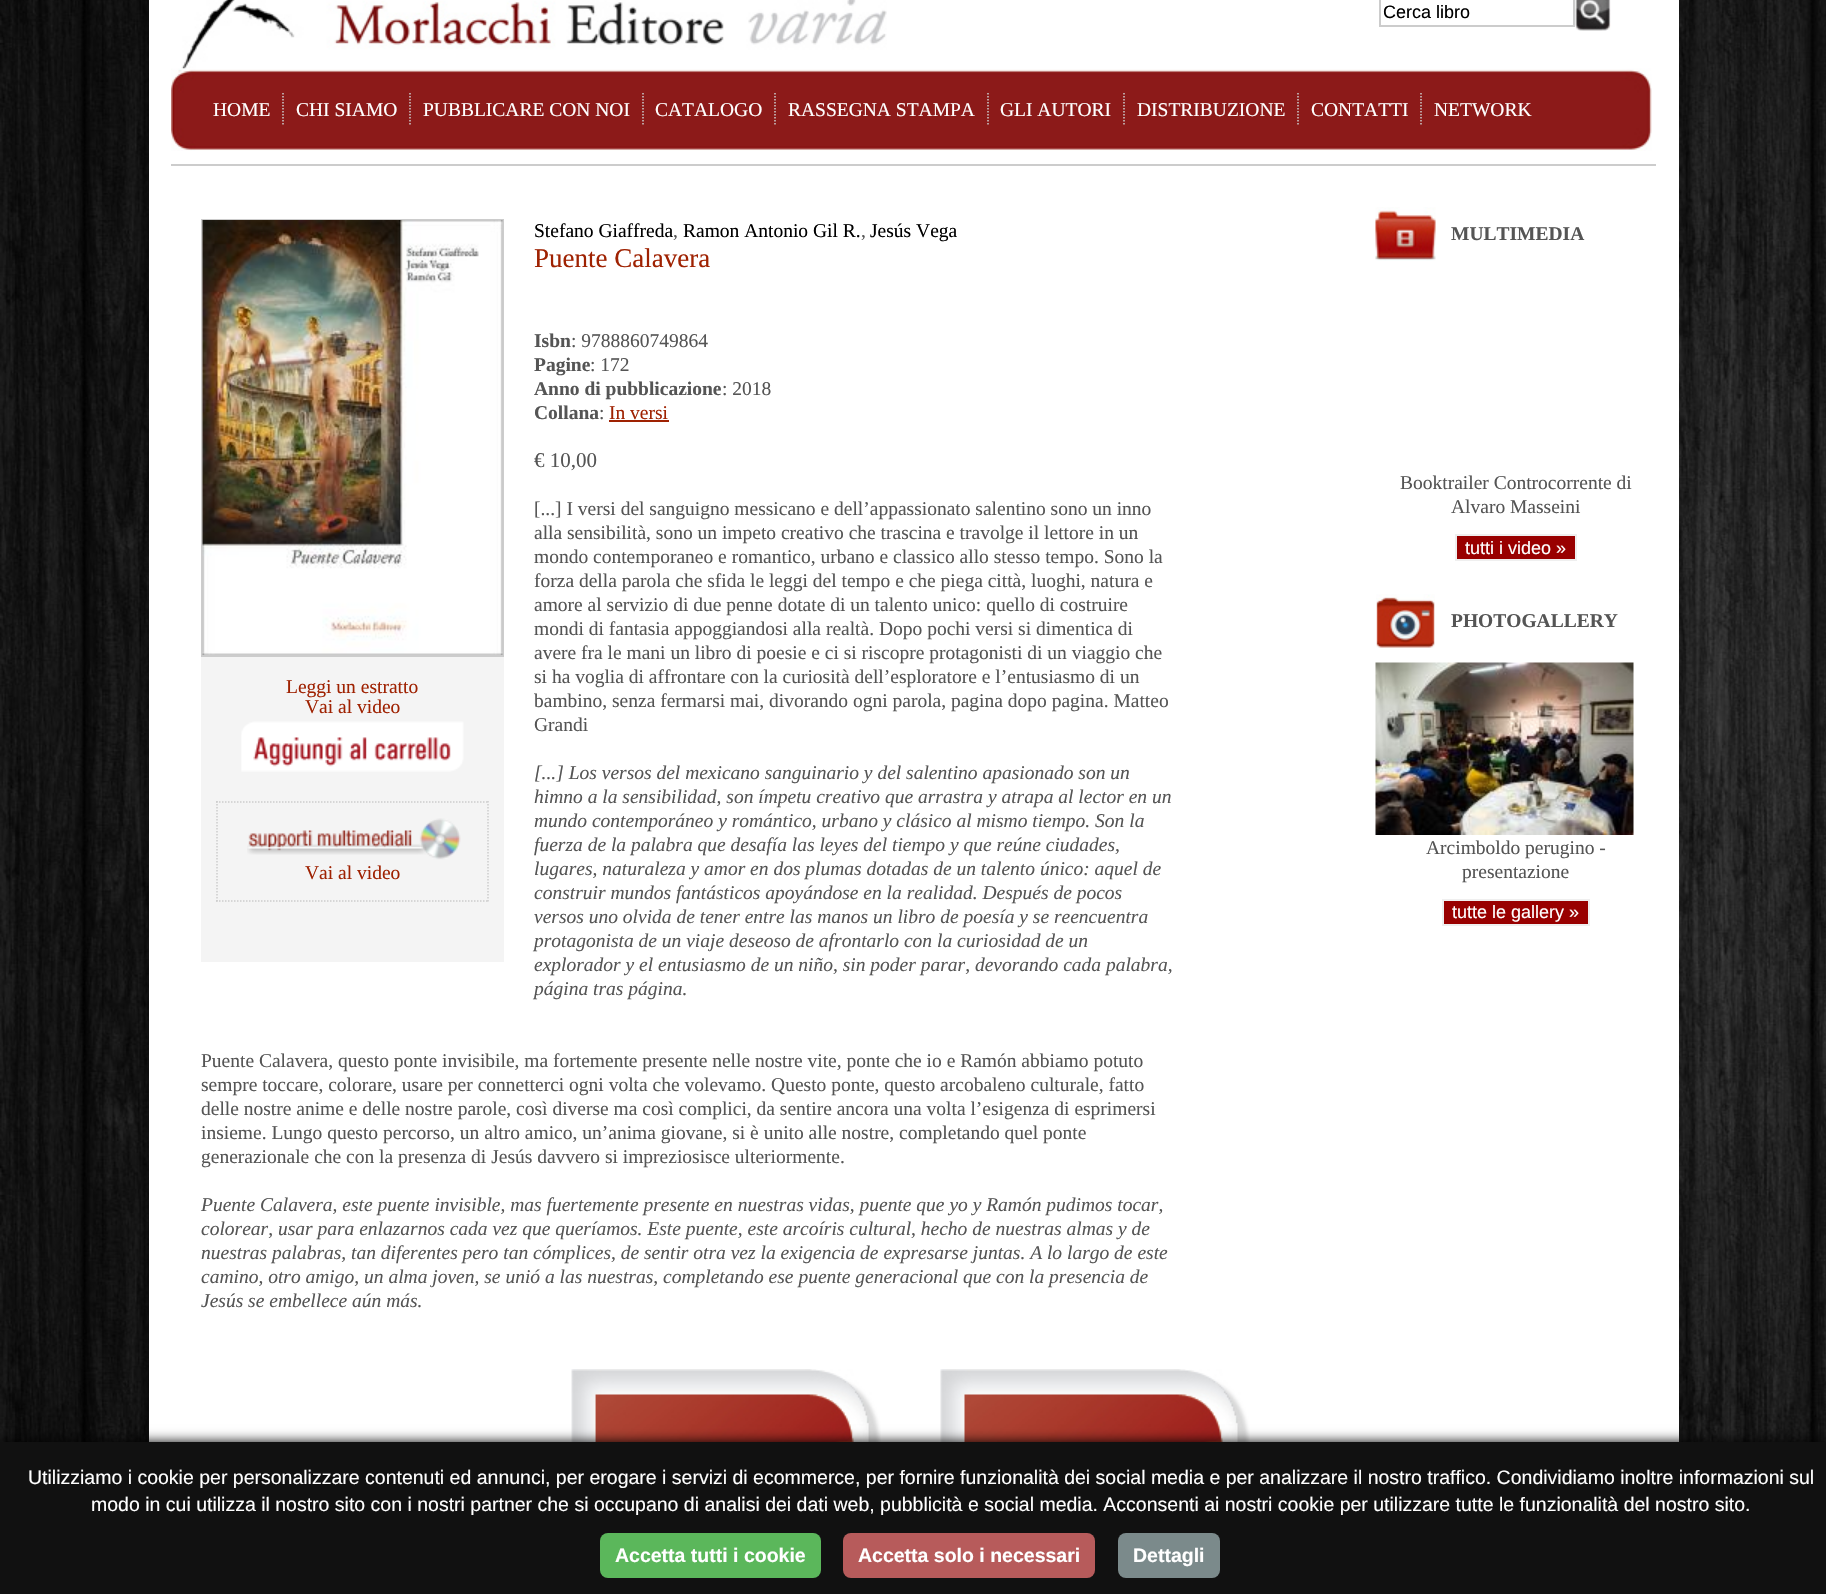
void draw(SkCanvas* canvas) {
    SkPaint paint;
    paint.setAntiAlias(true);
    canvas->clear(0xFFFFFFFF);
    canvas->drawImageRect(SkImages::DeferredFromEncodedData(SkData::MakeFromFileName("img1.png")), SkRect::MakeXYWH(0, 0, 1826, 1442), SkSamplingOptions());
    paint.setColor(0xFFFFFFFF);
    canvas->drawRect(SkRect::MakeXYWH(149, 0, 1530, 1442), paint);
    canvas->drawImageRect(SkImages::DeferredFromEncodedData(SkData::MakeFromFileName("img2.png")), SkRect::MakeXYWH(181, 0, 706, 69), SkSamplingOptions());
    paint.setStyle(SkPaint::kStroke_Style);
    paint.setStrokeWidth(2);
    paint.setColor(0xFFCCCCCC);
    canvas->drawRect(SkRect::MakeXYWH(1380, -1, 194, 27), paint);
    SkFont font1(fontMgr->matchFamilyStyle("Liberation Sans", SkFontStyle::Normal()), 18);
    font1.setSubpixel(true);
    paint.setStyle(SkPaint::kFill_Style);
    paint.setColor(0xFF000000);
    canvas->drawString("Cerca libro", 1383, 18, font1, paint);
    canvas->drawImageRect(SkImages::DeferredFromEncodedData(SkData::MakeFromFileName("img3.png")), SkRect::MakeXYWH(1575, 0, 36, 31), SkSamplingOptions());
    canvas->drawImageRect(SkImages::DeferredFromEncodedData(SkData::MakeFromFileName("img4.png")), SkRect::MakeXYWH(171, 68, 1481, 83), SkSamplingOptions());
    paint.setStyle(SkPaint::kStroke_Style);
    paint.setStrokeWidth(1.5f);
    paint.setColor(0xFFCCCCCC);
    paint.setPathEffect(SkDashPathEffect::Make({{1.5f, 1.5f}}, 0));
    canvas->drawPath(SkPathBuilder().moveTo(283, 93).lineTo(283, 126).detach(), paint);
    paint.setPathEffect(nullptr);
    SkFont font2(fontMgr->matchFamilyStyle("Liberation Serif", SkFontStyle::Normal()), 19.5f);
    font2.setSubpixel(true);
    paint.setStyle(SkPaint::kFill_Style);
    paint.setColor(0xFFFFFFFF);
    canvas->drawString("HOME", 213, 116, font2, paint);
    paint.setStyle(SkPaint::kStroke_Style);
    paint.setColor(0xFFCCCCCC);
    paint.setPathEffect(SkDashPathEffect::Make({{1.5f, 1.5f}}, 0));
    canvas->drawPath(SkPathBuilder().moveTo(410, 93).lineTo(410, 126).detach(), paint);
    paint.setPathEffect(nullptr);
    paint.setStyle(SkPaint::kFill_Style);
    paint.setColor(0xFFFFFFFF);
    canvas->drawString("CHI SIAMO", 296, 116, font2, paint);
    paint.setStyle(SkPaint::kStroke_Style);
    paint.setColor(0xFFCCCCCC);
    paint.setPathEffect(SkDashPathEffect::Make({{1.5f, 1.5f}}, 0));
    canvas->drawPath(SkPathBuilder().moveTo(643, 93).lineTo(643, 126).detach(), paint);
    paint.setPathEffect(nullptr);
    paint.setStyle(SkPaint::kFill_Style);
    paint.setColor(0xFFFFFFFF);
    canvas->drawString("PUBBLICARE CON NOI", 423, 116, font2, paint);
    paint.setStyle(SkPaint::kStroke_Style);
    paint.setColor(0xFFCCCCCC);
    paint.setPathEffect(SkDashPathEffect::Make({{1.5f, 1.5f}}, 0));
    canvas->drawPath(SkPathBuilder().moveTo(775, 93).lineTo(775, 126).detach(), paint);
    paint.setPathEffect(nullptr);
    paint.setStyle(SkPaint::kFill_Style);
    paint.setColor(0xFFFFFFFF);
    canvas->drawString("CATALOGO", 655, 116, font2, paint);
    paint.setStyle(SkPaint::kStroke_Style);
    paint.setColor(0xFFCCCCCC);
    paint.setPathEffect(SkDashPathEffect::Make({{1.5f, 1.5f}}, 0));
    canvas->drawPath(SkPathBuilder().moveTo(988, 93).lineTo(988, 126).detach(), paint);
    paint.setPathEffect(nullptr);
    paint.setStyle(SkPaint::kFill_Style);
    paint.setColor(0xFFFFFFFF);
    canvas->drawString("RASSEGNA STAMPA", 788, 116, font2, paint);
    paint.setStyle(SkPaint::kStroke_Style);
    paint.setColor(0xFFCCCCCC);
    paint.setPathEffect(SkDashPathEffect::Make({{1.5f, 1.5f}}, 0));
    canvas->drawPath(SkPathBuilder().moveTo(1124, 93).lineTo(1124, 126).detach(), paint);
    paint.setPathEffect(nullptr);
    paint.setStyle(SkPaint::kFill_Style);
    paint.setColor(0xFFFFFFFF);
    canvas->drawString("GLI AUTORI", 1000, 116, font2, paint);
    paint.setStyle(SkPaint::kStroke_Style);
    paint.setColor(0xFFCCCCCC);
    paint.setPathEffect(SkDashPathEffect::Make({{1.5f, 1.5f}}, 0));
    canvas->drawPath(SkPathBuilder().moveTo(1298, 93).lineTo(1298, 126).detach(), paint);
    paint.setPathEffect(nullptr);
    paint.setStyle(SkPaint::kFill_Style);
    paint.setColor(0xFFFFFFFF);
    canvas->drawString("DISTRIBUZIONE", 1137, 116, font2, paint);
    paint.setStyle(SkPaint::kStroke_Style);
    paint.setColor(0xFFCCCCCC);
    paint.setPathEffect(SkDashPathEffect::Make({{1.5f, 1.5f}}, 0));
    canvas->drawPath(SkPathBuilder().moveTo(1421, 93).lineTo(1421, 126).detach(), paint);
    paint.setPathEffect(nullptr);
    paint.setStyle(SkPaint::kFill_Style);
    paint.setColor(0xFFFFFFFF);
    canvas->drawString("CONTATTI", 1311, 116, font2, paint);
    canvas->drawString("NETWORK", 1434, 116, font2, paint);
    paint.setColor(0xFFCCCCCC);
    canvas->drawRect(SkRect::MakeXYWH(171, 164, 1485, 2), paint);
    paint.setColor(0xFF000000);
    canvas->drawString("Stefano Giaffreda", 534, 237, font2, paint);
    paint.setColor(0xFF555555);
    canvas->drawString(",", 673, 237, font2, paint);
    paint.setColor(0xFF000000);
    canvas->drawString("Ramon Antonio Gil R.", 683, 237, font2, paint);
    paint.setColor(0xFF555555);
    canvas->drawString(",", 861, 237, font2, paint);
    paint.setColor(0xFF000000);
    canvas->drawString("Jesús Vega", 870, 237, font2, paint);
    SkFont font3(fontMgr->matchFamilyStyle("Liberation Serif", SkFontStyle::Normal()), 27);
    font3.setSubpixel(true);
    paint.setColor(0xFF9F2202);
    canvas->drawString("Puente Calavera", 534, 267, font3, paint);
    SkFont font4(fontMgr->matchFamilyStyle("Liberation Serif", SkFontStyle::Bold()), 19.5f);
    font4.setSubpixel(true);
    paint.setColor(0xFF555555);
    canvas->drawString("Isbn", 534, 347, font4, paint);
    canvas->drawString(": 9788860749864", 571, 347, font2, paint);
    canvas->drawString("Pagine", 534, 371, font4, paint);
    canvas->drawString(": 172", 590, 371, font2, paint);
    canvas->drawString("Anno di pubblicazione", 534, 395, font4, paint);
    canvas->drawString(": 2018", 722, 395, font2, paint);
    canvas->drawString("Collana", 534, 419, font4, paint);
    canvas->drawString(":", 599, 419, font2, paint);
    paint.setColor(0xFF9F2202);
    canvas->drawString("In versi", 609, 419, font2, paint);
    canvas->drawRect(SkRect::MakeXYWH(609, 420, 60, 2), paint);
    SkFont font5(fontMgr->matchFamilyStyle("Liberation Serif", SkFontStyle::Normal()), 21);
    font5.setSubpixel(true);
    paint.setColor(0xFF555555);
    canvas->drawString("€ 10,00", 534, 467, font5, paint);
    canvas->drawString("[...] I versi del sanguigno messicano e dell’appassionato salentino sono un inno", 534, 515, font2, paint);
    canvas->drawString("alla sensibilità, sono un impeto creativo che trascina e travolge il lettore in un", 534, 539, font2, paint);
    canvas->drawString("mondo contemporaneo e romantico, urbano e classico allo stesso tempo. Sono la", 534, 563, font2, paint);
    canvas->drawString("forza della parola che sfida le leggi del tempo e che piega città, luoghi, natura e", 534, 587, font2, paint);
    canvas->drawString("amore al servizio di due penne dotate di un talento unico: quello di costruire", 534, 611, font2, paint);
    canvas->drawString("mondi di fantasia appoggiandosi alla realtà. Dopo pochi versi si dimentica di", 534, 635, font2, paint);
    canvas->drawString("avere fra le mani un libro di poesie e ci si riscopre protagonisti di un viaggio che", 534, 659, font2, paint);
    paint.setColor(0xFFF4F4F4);
    canvas->drawRect(SkRect::MakeXYWH(201, 657, 303, 305), paint);
    paint.setStyle(SkPaint::kStroke_Style);
    paint.setStrokeWidth(2);
    paint.setColor(0xFFCCCCCC);
    canvas->drawRect(SkRect::MakeXYWH(202, 220, 301, 436), paint);
    canvas->drawImageRect(SkImages::DeferredFromEncodedData(SkData::MakeFromFileName("img5.png")), SkRect::MakeXYWH(202, 220, 301, 435), SkSamplingOptions());
    paint.setStyle(SkPaint::kFill_Style);
    paint.setColor(0xFF9F2202);
    canvas->drawString("Leggi un estratto", 286, 693, font2, paint);
    canvas->drawString("Vai al video", 305, 713, font2, paint);
    canvas->drawImageRect(SkImages::DeferredFromEncodedData(SkData::MakeFromFileName("img6.png")), SkRect::MakeXYWH(241, 721, 223, 51), SkSamplingOptions());
    paint.setStyle(SkPaint::kStroke_Style);
    paint.setStrokeWidth(1.5f);
    paint.setColor(0xFFCCCCCC);
    paint.setPathEffect(SkDashPathEffect::Make({{1.5f, 1.5f}}, 0));
    canvas->drawPath(SkPathBuilder().moveTo(216, 802).lineTo(489, 802).detach(), paint);
    paint.setPathEffect(nullptr);
    paint.setPathEffect(SkDashPathEffect::Make({{1.5f, 1.5f}}, 0));
    canvas->drawPath(SkPathBuilder().moveTo(488, 801).lineTo(488, 901.5f).detach(), paint);
    paint.setPathEffect(nullptr);
    paint.setPathEffect(SkDashPathEffect::Make({{1.5f, 1.5f}}, 0));
    canvas->drawPath(SkPathBuilder().moveTo(216, 901).lineTo(489, 901).detach(), paint);
    paint.setPathEffect(nullptr);
    paint.setPathEffect(SkDashPathEffect::Make({{1.5f, 1.5f}}, 0));
    canvas->drawPath(SkPathBuilder().moveTo(217, 801).lineTo(217, 901.5f).detach(), paint);
    paint.setPathEffect(nullptr);
    canvas->drawImageRect(SkImages::DeferredFromEncodedData(SkData::MakeFromFileName("img7.png")), SkRect::MakeXYWH(247, 818, 214, 42), SkSamplingOptions());
    paint.setStyle(SkPaint::kFill_Style);
    paint.setColor(0xFF9F2202);
    canvas->drawString("Vai al video", 305, 879, font2, paint);
    paint.setColor(0xFF555555);
    canvas->drawString("si ha voglia di affrontare con la curiosità dell’esploratore e l’entusiasmo di un", 534, 683, font2, paint);
    canvas->drawString("bambino, senza fermarsi mai, divorando ogni parola, pagina dopo pagina. Matteo", 534, 707, font2, paint);
    canvas->drawString("Grandi", 534, 731, font2, paint);
    SkFont font6(fontMgr->matchFamilyStyle("Liberation Serif", SkFontStyle::Italic()), 19.5f);
    font6.setSubpixel(true);
    canvas->drawString("[...] Los versos del mexicano sanguinario y del salentino apasionado son un", 534, 779, font6, paint);
    canvas->drawString("himno a la sensibilidad, son ímpetu creativo que arrastra y atrapa al lector en un", 534, 803, font6, paint);
    canvas->drawString("mundo contemporáneo y romántico, urbano y clásico al mismo tiempo. Son la", 534, 827, font6, paint);
    canvas->drawString("fuerza de la palabra que desafía las leyes del tiempo y que reúne ciudades,", 534, 851, font6, paint);
    canvas->drawString("lugares, naturaleza y amor en dos plumas dotadas de un talento único: aquel de", 534, 875, font6, paint);
    canvas->drawString("construir mundos fantásticos apoyándose en la realidad. Después de pocos", 534, 899, font6, paint);
    canvas->drawString("versos uno olvida de tener entre las manos un libro de poesía y se reencuentra", 534, 923, font6, paint);
    canvas->drawString("protagonista de un viaje deseoso de afrontarlo con la curiosidad de un", 534, 947, font6, paint);
    canvas->drawString("explorador y el entusiasmo de un niño, sin poder parar, devorando cada palabra,", 534, 971, font6, paint);
    canvas->drawString("página tras página.", 534, 995, font6, paint);
    canvas->drawString("Puente Calavera, questo ponte invisibile, ma fortemente presente nelle nostre vite, ponte che io e Ramón abbiamo potuto", 201, 1067, font2, paint);
    canvas->drawString("sempre toccare, colorare, usare per connetterci ogni volta che volevamo. Questo ponte, questo arcobaleno culturale, fatto", 201, 1091, font2, paint);
    canvas->drawString("delle nostre anime e delle nostre parole, così diverse ma così complici, da sentire ancora una volta l’esigenza di esprimersi", 201, 1115, font2, paint);
    canvas->drawString("insieme. Lungo questo percorso, un altro amico, un’anima giovane, si è unito alle nostre, completando quel ponte", 201, 1139, font2, paint);
    canvas->drawString("generazionale che con la presenza di Jesús davvero si impreziosisce ulteriormente.", 201, 1163, font2, paint);
    canvas->drawString("Puente Calavera, este puente invisible, mas fuertemente presente en nuestras vidas, puente que yo y Ramón pudimos tocar,", 201, 1211, font6, paint);
    canvas->drawString("colorear, usar para enlazarnos cada vez que queríamos. Este puente, este arcoíris cultural, hecho de nuestras almas y de", 201, 1235, font6, paint);
    canvas->drawString("nuestras palabras, tan diferentes pero tan cómplices, de sentir otra vez la exigencia de expresarse juntas. A lo largo de este", 201, 1259, font6, paint);
    canvas->drawString("camino, otro amigo, un alma joven, se unió a las nuestras, completando ese puente generacional que con la presencia de", 201, 1283, font6, paint);
    canvas->drawString("Jesús se embellece aún más.", 201, 1307, font6, paint);
    canvas->drawImageRect(SkImages::DeferredFromEncodedData(SkData::MakeFromFileName("img8.png")), SkRect::MakeXYWH(1375, 207, 61, 54), SkSamplingOptions());
    canvas->drawString("MULTIMEDIA", 1451, 240, font4, paint);
    canvas->drawString("Booktrailer Controcorrente di", 1400, 489, font2, paint);
    canvas->drawString("Alvaro Masseini", 1451, 513, font2, paint);
    paint.setColor(0xFF990000);
    canvas->drawRect(SkRect::MakeXYWH(1456, 535, 120, 25), paint);
    paint.setStyle(SkPaint::kStroke_Style);
    paint.setStrokeWidth(2);
    paint.setColor(0xFFEFEFEF);
    canvas->drawRect(SkRect::MakeXYWH(1456, 535, 120, 25), paint);
    paint.setStyle(SkPaint::kFill_Style);
    paint.setColor(0xFFFFFFFF);
    canvas->drawString("tutti i video »", 1465, 554, font1, paint);
    canvas->drawImageRect(SkImages::DeferredFromEncodedData(SkData::MakeFromFileName("img9.png")), SkRect::MakeXYWH(1376, 594, 59, 54), SkSamplingOptions());
    paint.setColor(0xFF555555);
    canvas->drawString("PHOTOGALLERY", 1451, 627, font4, paint);
    canvas->drawImageRect(SkImages::DeferredFromEncodedData(SkData::MakeFromFileName("img10.png")), SkRect::MakeXYWH(1375, 662, 259, 173), SkSamplingOptions());
    canvas->drawString("Arcimboldo perugino -", 1426, 854, font2, paint);
    canvas->drawString("presentazione", 1462, 878, font2, paint);
    paint.setColor(0xFF990000);
    canvas->drawRect(SkRect::MakeXYWH(1443, 900, 146, 25), paint);
    paint.setStyle(SkPaint::kStroke_Style);
    paint.setColor(0xFFEFEFEF);
    canvas->drawRect(SkRect::MakeXYWH(1443, 900, 146, 25), paint);
    paint.setStyle(SkPaint::kFill_Style);
    paint.setColor(0xFFFFFFFF);
    canvas->drawString("tutte le gallery »", 1452, 918, font1, paint);
    canvas->drawImageRect(SkImages::DeferredFromEncodedData(SkData::MakeFromFileName("img11.png")), SkRect::MakeXYWH(571, 1369, 310, 73), SkSamplingOptions());
    canvas->drawImageRect(SkImages::DeferredFromEncodedData(SkData::MakeFromFileName("img12.png")), SkRect::MakeXYWH(940, 1369, 310, 73), SkSamplingOptions());
    paint.setColor(0xFF000000);
    paint.setMaskFilter(SkMaskFilter::MakeBlur(kNormal_SkBlurStyle, 6));
    canvas->drawRect(SkRect::MakeXYWH(0, 1442, 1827, 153), paint);
    paint.setMaskFilter(nullptr);
    paint.setColor(0xFF111111);
    canvas->drawRect(SkRect::MakeXYWH(0, 1442, 1826, 152), paint);
    SkFont font7(fontMgr->matchFamilyStyle("Liberation Sans", SkFontStyle::Normal()), 19.5f);
    font7.setSubpixel(true);
    paint.setColor(0xFFFFFFFF);
    canvas->drawString("Utilizziamo i cookie per personalizzare contenuti ed annunci, per erogare i servizi di ecommerce, per fornire funzionalità dei social media e per analizzare il nostro traffico. Condividiamo inoltre informazioni sul", 28, 1484, font7, paint);
    canvas->drawString("modo in cui utilizza il nostro sito con i nostri partner che si occupano di analisi dei dati web, pubblicità e social media. Acconsenti ai nostri cookie per utilizzare tutte le funzionalità del nostro sito.", 91, 1511, font7, paint);
    paint.setColor(0xFF5BB75B);
    canvas->drawRoundRect(SkRect::MakeXYWH(600, 1533, 221, 45), 8, 8, paint);
    SkFont font8(fontMgr->matchFamilyStyle("Liberation Sans", SkFontStyle::Bold()), 19.5f);
    font8.setSubpixel(true);
    paint.setColor(0xFFFFFFFF);
    canvas->drawString("Accetta tutti i cookie", 615, 1562, font8, paint);
    paint.setColor(0xFFB75B5B);
    canvas->drawRoundRect(SkRect::MakeXYWH(843, 1533, 252, 45), 8, 8, paint);
    paint.setColor(0xFFFFFFFF);
    canvas->drawString("Accetta solo i necessari", 858, 1562, font8, paint);
    paint.setColor(0xFF7B8A8B);
    canvas->drawRoundRect(SkRect::MakeXYWH(1118, 1533, 102, 45), 8, 8, paint);
    paint.setColor(0xFFFFFFFF);
    canvas->drawString("Dettagli", 1133, 1562, font8, paint);
}
